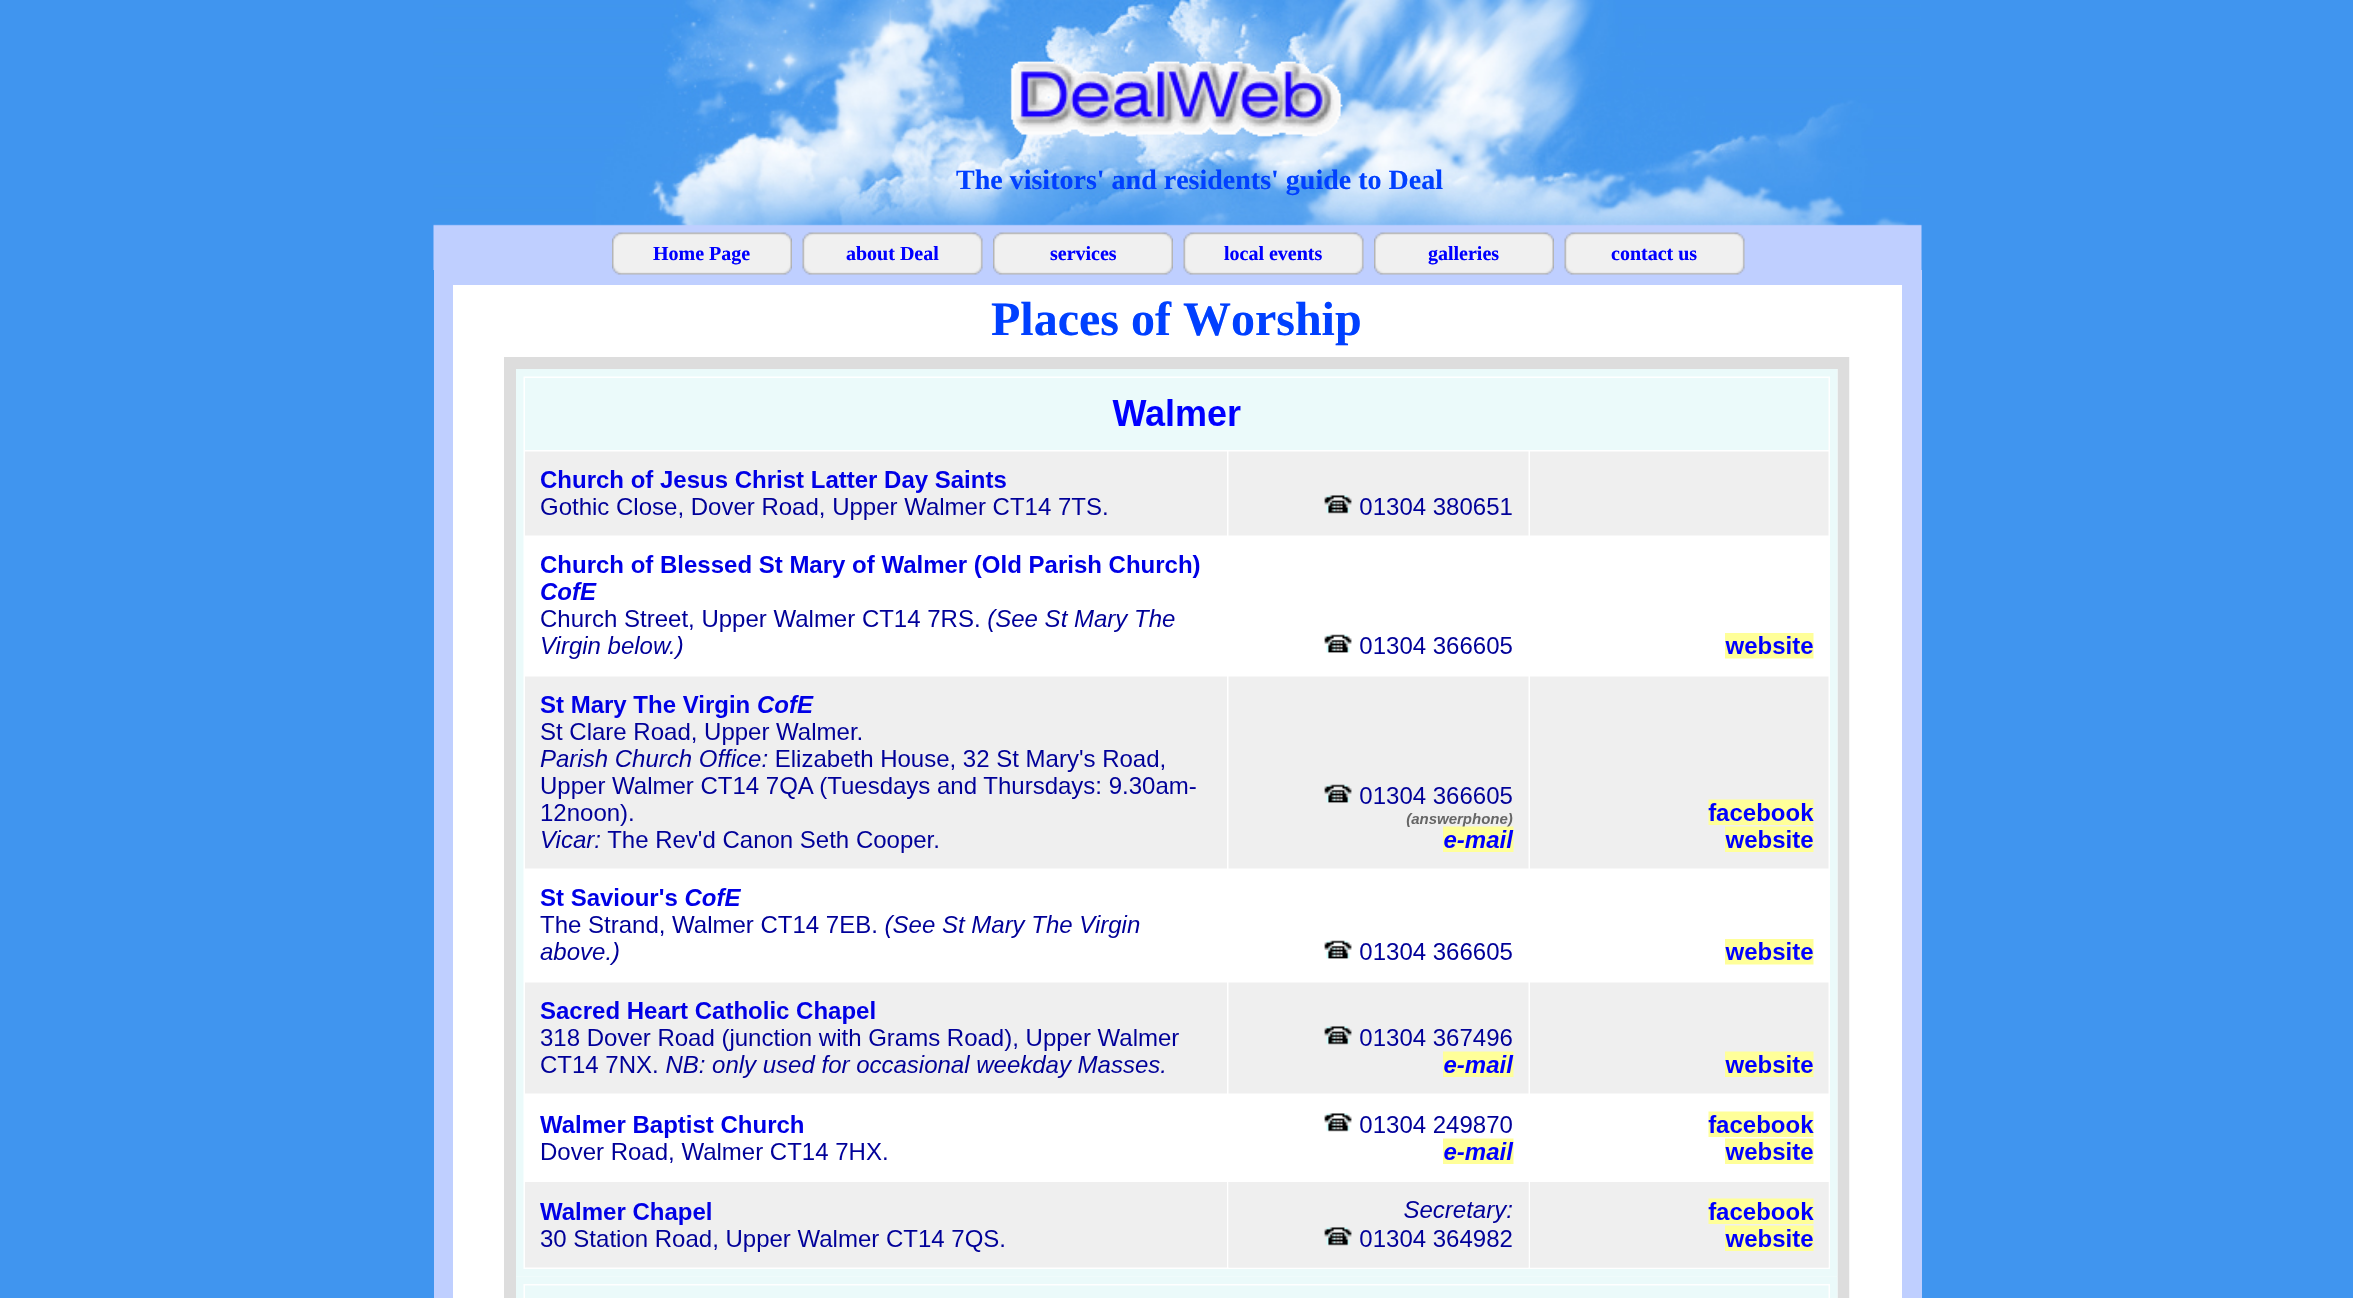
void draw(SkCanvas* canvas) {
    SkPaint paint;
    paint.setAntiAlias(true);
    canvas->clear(0xFF4095EF);
    canvas->drawImageRect(SkImages::DeferredFromEncodedData(SkData::MakeFromFileName("img1.png")), SkRect::MakeXYWH(433, 0, 1489, 270), SkSamplingOptions());
    canvas->drawImageRect(SkImages::DeferredFromEncodedData(SkData::MakeFromFileName("img2.png")), SkRect::MakeXYWH(1010, 61, 333, 76), SkSamplingOptions());
    SkFont font1(fontMgr->matchFamilyStyle("Liberation Serif", SkFontStyle::Bold()), 28);
    font1.setSubpixel(true);
    paint.setColor(0xFF0040FF);
    canvas->drawString("The visitors' and residents' guide to Deal", 956, 189, font1, paint);
    paint.setColor(0xFFBFCFFF);
    canvas->drawRect(SkRect::MakeXYWH(434, 270, 1488, 1028), paint);
    canvas->drawImageRect(SkImages::DeferredFromEncodedData(SkData::MakeFromFileName("img3.png")), SkRect::MakeXYWH(612, 232, 180, 43), SkSamplingOptions());
    SkFont font2(fontMgr->matchFamilyStyle("Liberation Serif", SkFontStyle::Bold()), 20);
    font2.setSubpixel(true);
    paint.setColor(0xFF0000FF);
    canvas->drawString("Home Page", 653, 260, font2, paint);
    canvas->drawImageRect(SkImages::DeferredFromEncodedData(SkData::MakeFromFileName("img4.png")), SkRect::MakeXYWH(802, 232, 181, 43), SkSamplingOptions());
    canvas->drawString("about Deal", 846, 260, font2, paint);
    canvas->drawImageRect(SkImages::DeferredFromEncodedData(SkData::MakeFromFileName("img3.png")), SkRect::MakeXYWH(993, 232, 180, 43), SkSamplingOptions());
    canvas->drawString("services", 1050, 260, font2, paint);
    canvas->drawImageRect(SkImages::DeferredFromEncodedData(SkData::MakeFromFileName("img5.png")), SkRect::MakeXYWH(1183, 232, 181, 43), SkSamplingOptions());
    canvas->drawString("local events", 1224, 260, font2, paint);
    canvas->drawImageRect(SkImages::DeferredFromEncodedData(SkData::MakeFromFileName("img3.png")), SkRect::MakeXYWH(1374, 232, 180, 43), SkSamplingOptions());
    canvas->drawString("galleries", 1428, 260, font2, paint);
    canvas->drawImageRect(SkImages::DeferredFromEncodedData(SkData::MakeFromFileName("img4.png")), SkRect::MakeXYWH(1564, 232, 181, 43), SkSamplingOptions());
    canvas->drawString("contact us", 1611, 260, font2, paint);
    paint.setColor(0xFFFFFFFF);
    canvas->drawRect(SkRect::MakeXYWH(453, 285, 1449, 1013), paint);
    SkFont font3(fontMgr->matchFamilyStyle("Liberation Serif", SkFontStyle::Bold()), 48);
    font3.setSubpixel(true);
    paint.setColor(0xFF0040FF);
    canvas->drawString("Places of Worship", 991, 335, font3, paint);
    canvas->drawImageRect(SkImages::DeferredFromEncodedData(SkData::MakeFromFileName("img6.png")), SkRect::MakeXYWH(504, 357, 1346, 941), SkSamplingOptions());
}
